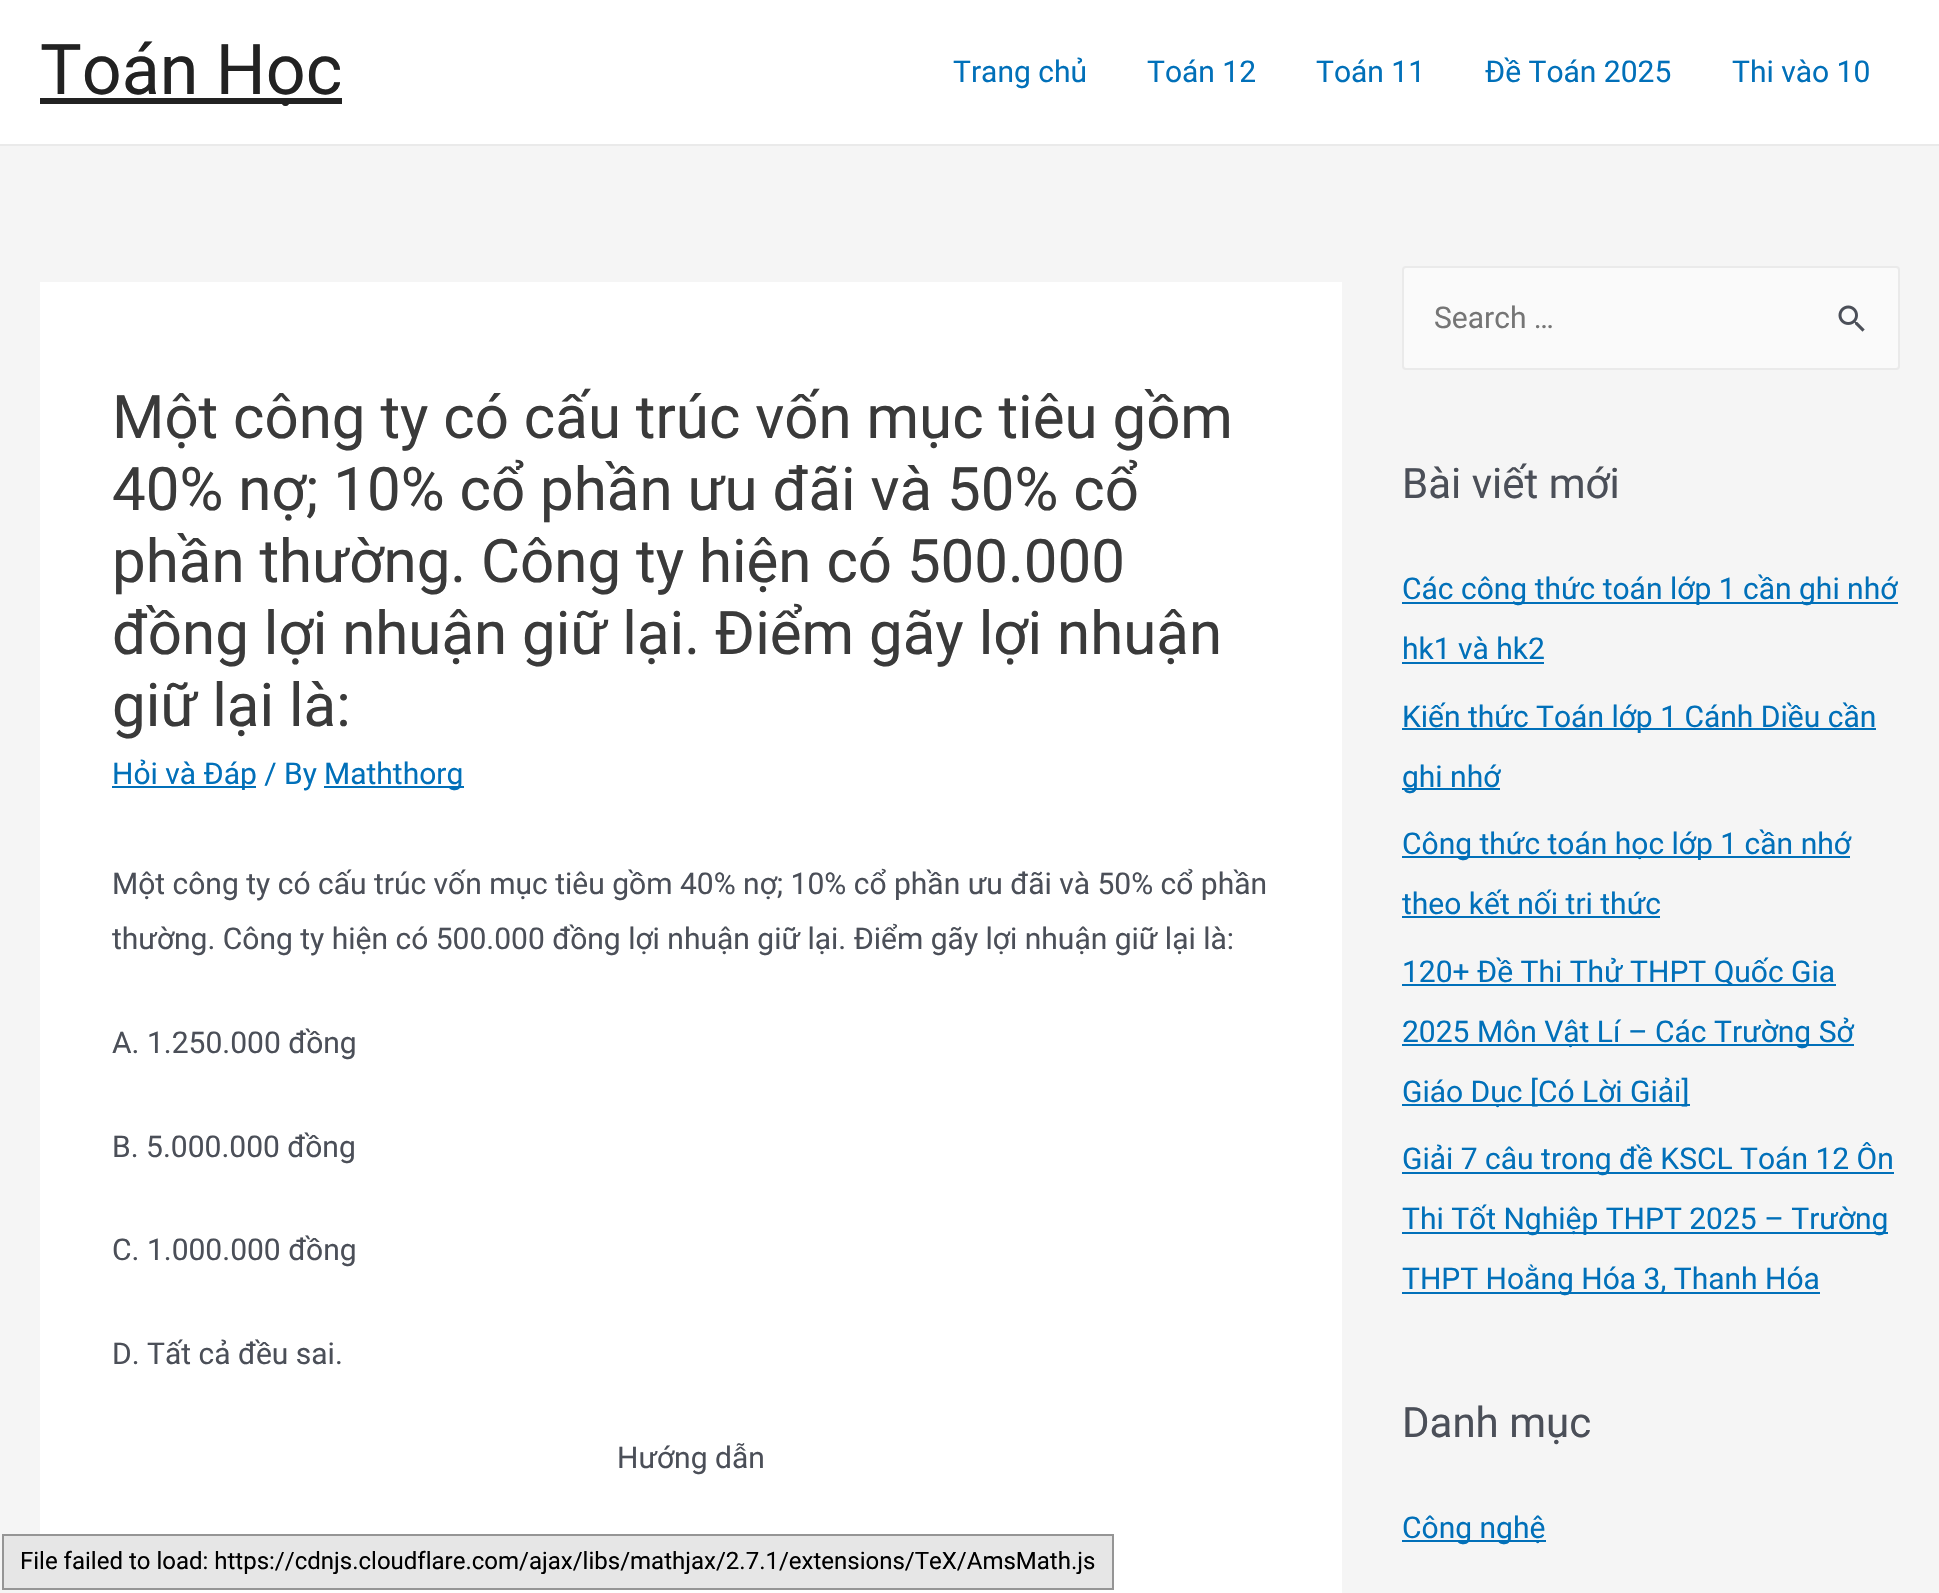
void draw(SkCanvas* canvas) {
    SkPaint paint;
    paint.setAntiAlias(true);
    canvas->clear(0xFFF5F5F5);
    paint.setColor(0xFFFFFFFF);
    canvas->drawRect(SkRect::MakeXYWH(0, 0, 1939, 144), paint);
    paint.setColor(0xFFEAEAEA);
    canvas->drawRect(SkRect::MakeXYWH(0, 144, 1939, 2), paint);
    paint.setColor(0xFF222222);
    canvas->drawRect(SkRect::MakeXYWH(40, 98, 302, 6), paint);
    SkFont font1(fontMgr->matchFamilyStyle("Roboto", SkFontStyle::Normal()), 70);
    font1.setSubpixel(true);
    canvas->drawString("Toán Học", 40, 94, font1, paint);
    SkFont font2(fontMgr->matchFamilyStyle("Roboto", SkFontStyle::Normal()), 30);
    font2.setSubpixel(true);
    paint.setColor(0xFF0170B9);
    canvas->drawString("Trang chủ", 953, 82, font2, paint);
    canvas->drawString("Toán 12", 1147, 82, font2, paint);
    canvas->drawString("Toán 11", 1316, 82, font2, paint);
    canvas->drawString("Đề Toán 2025", 1485, 82, font2, paint);
    canvas->drawString("Thi vào 10", 1732, 82, font2, paint);
    paint.setColor(0xFFFFFFFF);
    canvas->drawRect(SkRect::MakeXYWH(40, 282, 1302, 1311), paint);
    SkFont font3(fontMgr->matchFamilyStyle("Roboto", SkFontStyle::Normal()), 60);
    font3.setSubpixel(true);
    paint.setColor(0xFF3A3A3A);
    canvas->drawString("Một công ty có cấu trúc vốn mục tiêu gồm", 112, 438, font3, paint);
    canvas->drawString("40% nợ; 10% cổ phần ưu đãi và 50% cổ", 112, 510, font3, paint);
    canvas->drawString("phần thường. Công ty hiện có 500.000", 112, 582, font3, paint);
    canvas->drawString("đồng lợi nhuận giữ lại. Điểm gãy lợi nhuận", 112, 654, font3, paint);
    canvas->drawString("giữ lại là:", 112, 726, font3, paint);
    paint.setColor(0xFF0170B9);
    canvas->drawRect(SkRect::MakeXYWH(112, 786, 144, 2), paint);
    canvas->drawString("Hỏi và Đáp / By", 112, 784, font2, paint);
    canvas->drawRect(SkRect::MakeXYWH(324, 786, 140, 2), paint);
    canvas->drawString("Maththorg", 324, 784, font2, paint);
    paint.setColor(0xFF4B4F58);
    canvas->drawString("Một công ty có cấu trúc vốn mục tiêu gồm 40% nợ; 10% cổ phần ưu đãi và 50% cổ phần", 112, 894, font2, paint);
    canvas->drawString("thường. Công ty hiện có 500.000 đồng lợi nhuận giữ lại. Điểm gãy lợi nhuận giữ lại là:", 112, 949, font2, paint);
    canvas->drawString("A. 1.250.000 đồng", 112, 1053, font2, paint);
    canvas->drawString("B. 5.000.000 đồng", 112, 1157, font2, paint);
    canvas->drawString("C. 1.000.000 đồng", 112, 1260, font2, paint);
    canvas->drawString("D. Tất cả đều sai.", 112, 1364, font2, paint);
    canvas->drawString("Hướng dẫn", 617, 1468, font2, paint);
    paint.setColor(0xFFFAFAFA);
    canvas->drawRoundRect(SkRect::MakeXYWH(1403, 267, 496, 102), 3, 3, paint);
    paint.setStyle(SkPaint::kStroke_Style);
    paint.setStrokeWidth(2);
    paint.setColor(0xFFEAEAEA);
    canvas->drawRoundRect(SkRect::MakeXYWH(1403, 267, 496, 102), 3, 3, paint);
    paint.setStyle(SkPaint::kFill_Style);
    paint.setColor(0xFF757575);
    canvas->drawString("Search …", 1434, 328, font2, paint);
    canvas->drawImageRect(SkImages::DeferredFromEncodedData(SkData::MakeFromFileName("img1.png")), SkRect::MakeXYWH(1838, 305, 27, 27), SkSamplingOptions());
    SkFont font4(fontMgr->matchFamilyStyle("Roboto", SkFontStyle::Normal()), 42);
    font4.setSubpixel(true);
    paint.setColor(0xFF4B4F58);
    canvas->drawString("Bài viết mới", 1402, 498, font4, paint);
    paint.setColor(0xFF0170B9);
    canvas->drawRect(SkRect::MakeXYWH(1402, 602, 496, 2), paint);
    canvas->drawString("Các công thức toán lớp 1 cần ghi nhớ", 1402, 599, font2, paint);
    canvas->drawString("hk1 và hk2", 1402, 659, font2, paint);
    canvas->drawRect(SkRect::MakeXYWH(1402, 662, 142, 2), paint);
    canvas->drawRect(SkRect::MakeXYWH(1402, 728, 474, 2), paint);
    canvas->drawString("Kiến thức Toán lớp 1 Cánh Diều cần", 1402, 727, font2, paint);
    canvas->drawRect(SkRect::MakeXYWH(1402, 788, 98, 2), paint);
    canvas->drawString("ghi nhớ", 1402, 787, font2, paint);
    canvas->drawRect(SkRect::MakeXYWH(1402, 856, 448, 2), paint);
    canvas->drawString("Công thức toán học lớp 1 cần nhớ", 1402, 854, font2, paint);
    canvas->drawString("theo kết nối tri thức", 1402, 914, font2, paint);
    canvas->drawRect(SkRect::MakeXYWH(1402, 916, 258, 2), paint);
    canvas->drawRect(SkRect::MakeXYWH(1402, 984, 434, 2), paint);
    canvas->drawString("120+ Đề Thi Thử THPT Quốc Gia", 1402, 982, font2, paint);
    canvas->drawRect(SkRect::MakeXYWH(1402, 1044, 452, 2), paint);
    canvas->drawString("2025 Môn Vật Lí – Các Trường Sở", 1402, 1042, font2, paint);
    canvas->drawRect(SkRect::MakeXYWH(1402, 1104, 288, 2), paint);
    canvas->drawString("Giáo Dục [Có Lời Giải]", 1402, 1102, font2, paint);
    canvas->drawRect(SkRect::MakeXYWH(1402, 1172, 492, 2), paint);
    canvas->drawString("Giải 7 câu trong đề KSCL Toán 12 Ôn", 1402, 1169, font2, paint);
    canvas->drawRect(SkRect::MakeXYWH(1402, 1232, 486, 2), paint);
    canvas->drawString("Thi Tốt Nghiệp THPT 2025 – Trường", 1402, 1229, font2, paint);
    canvas->drawRect(SkRect::MakeXYWH(1402, 1292, 418, 2), paint);
    canvas->drawString("THPT Hoằng Hóa 3, Thanh Hóa", 1402, 1289, font2, paint);
    paint.setColor(0xFF4B4F58);
    canvas->drawString("Danh mục", 1402, 1437, font4, paint);
    paint.setColor(0xFF0170B9);
    canvas->drawRect(SkRect::MakeXYWH(1402, 1540, 144, 2), paint);
    canvas->drawString("Công nghệ", 1402, 1538, font2, paint);
    paint.setColor(0xFFE6E6E6);
    canvas->drawRect(SkRect::MakeXYWH(3, 1535, 1110, 54), paint);
    paint.setStyle(SkPaint::kStroke_Style);
    paint.setColor(0xFF959595);
    canvas->drawRect(SkRect::MakeXYWH(3, 1535, 1110, 54), paint);
    SkFont font5(fontMgr->matchFamilyStyle("Roboto", SkFontStyle::Normal()), 24);
    font5.setSubpixel(true);
    paint.setStyle(SkPaint::kFill_Style);
    paint.setColor(0xFF000000);
    canvas->drawString("File failed to load: https://cdnjs.cloudflare.com/ajax/libs/mathjax/2.7.1/extensions/TeX/AmsMath.js", 20, 1569, font5, paint);
}
